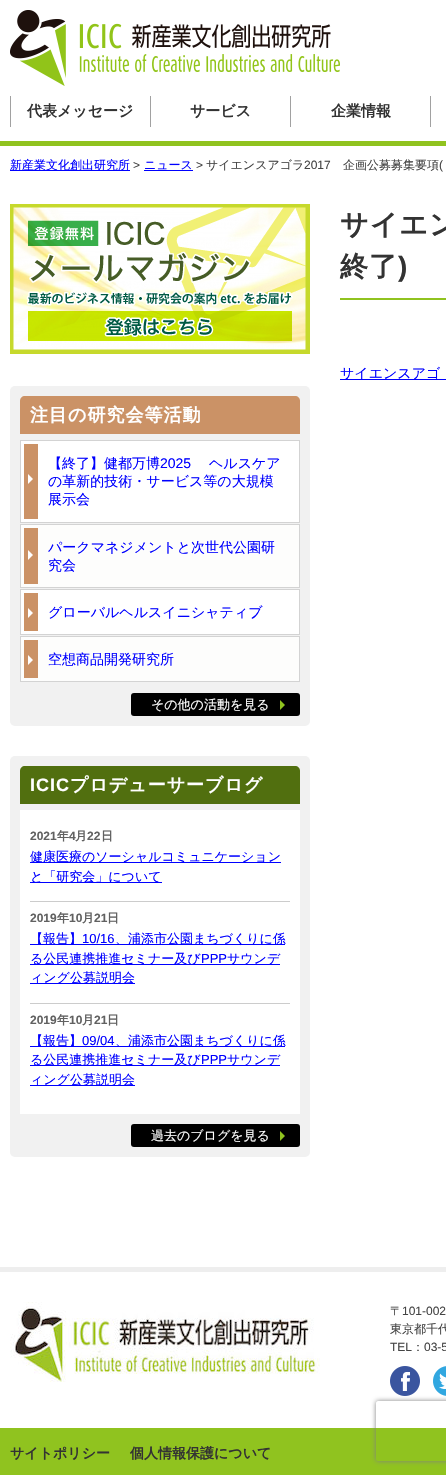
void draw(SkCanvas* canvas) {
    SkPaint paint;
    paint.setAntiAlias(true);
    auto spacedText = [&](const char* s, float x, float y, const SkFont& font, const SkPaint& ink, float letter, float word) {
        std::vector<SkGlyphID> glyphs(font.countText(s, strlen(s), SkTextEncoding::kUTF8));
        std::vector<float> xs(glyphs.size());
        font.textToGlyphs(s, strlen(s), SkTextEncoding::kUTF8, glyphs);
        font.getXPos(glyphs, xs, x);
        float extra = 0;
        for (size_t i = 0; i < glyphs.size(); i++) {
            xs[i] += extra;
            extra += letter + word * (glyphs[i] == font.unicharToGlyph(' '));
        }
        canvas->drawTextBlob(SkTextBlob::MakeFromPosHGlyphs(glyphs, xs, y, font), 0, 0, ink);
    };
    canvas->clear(0xFFFFFFFF);
    canvas->drawImageRect(SkImages::DeferredFromEncodedData(SkData::MakeFromFileName("img1.png")), SkRect::MakeXYWH(10, 10, 330, 76), SkSamplingOptions());
    paint.setColor(0xFF90C31F);
    canvas->drawRect(SkRect::MakeXYWH(0, 141, 446, 5), paint);
    paint.setColor(0xFFA1A1A1);
    canvas->drawRect(SkRect::MakeXYWH(10, 96, 1, 31), paint);
    SkFont font1(fontMgr->matchFamilyStyle("WenQuanYi Zen Hei", SkFontStyle::Bold()), 15);
    font1.setSubpixel(true);
    paint.setColor(0xFF333333);
    canvas->drawString("代表メッセージ", 27, 116, font1, paint);
    paint.setColor(0xFFA1A1A1);
    canvas->drawRect(SkRect::MakeXYWH(150, 96, 1, 31), paint);
    paint.setColor(0xFF333333);
    canvas->drawString("サービス", 190, 116, font1, paint);
    paint.setColor(0xFFA1A1A1);
    canvas->drawRect(SkRect::MakeXYWH(290, 96, 1, 31), paint);
    paint.setColor(0xFF333333);
    canvas->drawString("企業情報", 331, 116, font1, paint);
    paint.setColor(0xFFA1A1A1);
    canvas->drawRect(SkRect::MakeXYWH(430, 96, 1, 31), paint);
    paint.setColor(0xFF0000FF);
    canvas->drawRect(SkRect::MakeXYWH(10, 170, 120, 1), paint);
    SkFont font2(fontMgr->matchFamilyStyle("WenQuanYi Zen Hei", SkFontStyle(500, SkFontStyle::kNormal_Width, SkFontStyle::kUpright_Slant)), 12);
    font2.setSubpixel(true);
    canvas->drawString("新産業文化創出研究所", 10, 169, font2, paint);
    SkFont font3(fontMgr->matchFamilyStyle("Liberation Sans", SkFontStyle::Normal()), 12);
    font3.setSubpixel(true);
    paint.setColor(0xFF444444);
    canvas->drawString(">", 133, 169, font3, paint);
    paint.setColor(0xFF0000FF);
    canvas->drawString("ニュース", 144, 169, font2, paint);
    canvas->drawRect(SkRect::MakeXYWH(144, 170, 49, 1), paint);
    paint.setColor(0xFF444444);
    canvas->drawString(">", 196, 169, font3, paint);
    canvas->drawString("サイエンスアゴラ", 206, 169, font2, paint);
    canvas->drawString("2017", 304, 169, font3, paint);
    canvas->drawString("企画公募募集要項", 343, 169, font2, paint);
    canvas->drawString("(", 439, 169, font3, paint);
    paint.setColor(0xFF90C31F);
    canvas->drawRect(SkRect::MakeXYWH(340, 298, 106, 2), paint);
    SkFont font4(fontMgr->matchFamilyStyle("WenQuanYi Zen Hei", SkFontStyle::Bold()), 28);
    font4.setSubpixel(true);
    paint.setColor(0xFF333333);
    spacedText("サイエン", 340, 234, font4, paint, 1, 0);
    spacedText("終了", 340, 276, font4, paint, 1, 0);
    SkFont font5(fontMgr->matchFamilyStyle("Liberation Sans", SkFontStyle::Bold()), 28);
    font5.setSubpixel(true);
    spacedText(")", 398, 276, font5, paint, 1, 0);
    paint.setColor(0xFF0000FF);
    canvas->drawRect(SkRect::MakeXYWH(340, 379, 106, 1), paint);
    SkFont font6(fontMgr->matchFamilyStyle("WenQuanYi Zen Hei", SkFontStyle(500, SkFontStyle::kNormal_Width, SkFontStyle::kUpright_Slant)), 14);
    font6.setSubpixel(true);
    canvas->drawString("サイエンスアゴ", 340, 378, font6, paint);
    canvas->drawImageRect(SkImages::DeferredFromEncodedData(SkData::MakeFromFileName("img2.png")), SkRect::MakeXYWH(10, 204, 300, 150), SkSamplingOptions());
    paint.setColor(0xFFF1F1F1);
    canvas->drawRoundRect(SkRect::MakeXYWH(10, 386, 300, 340), 5, 5, paint);
    paint.setColor(0xFFCB9266);
    canvas->drawPath(SkPathBuilder().moveTo(25, 396).lineTo(295, 396).cubicTo(298, 396, 300, 398, 300, 401).lineTo(300, 434).lineTo(20, 434).lineTo(20, 401).cubicTo(20, 398, 22, 396, 25, 396).close().detach(), paint);
    SkFont font7(fontMgr->matchFamilyStyle("WenQuanYi Zen Hei", SkFontStyle::Bold()), 18);
    font7.setSubpixel(true);
    paint.setColor(0xFFFFFFFF);
    spacedText("注目の研究会等活動", 30, 421, font7, paint, 1, 0);
    canvas->drawRect(SkRect::MakeXYWH(20.5f, 440.5f, 279, 82), paint);
    paint.setStyle(SkPaint::kStroke_Style);
    paint.setStrokeWidth(1);
    paint.setColor(0xFFD3D3D3);
    canvas->drawRect(SkRect::MakeXYWH(20.5f, 440.5f, 279, 82), paint);
    paint.setStyle(SkPaint::kFill_Style);
    paint.setColor(0xFFCB9266);
    canvas->drawRect(SkRect::MakeXYWH(24, 444, 14, 75), paint);
    paint.setColor(0xFF0000FF);
    canvas->drawString("【終了】健都万博", 48, 468, font6, paint);
    SkFont font8(fontMgr->matchFamilyStyle("Liberation Sans", SkFontStyle::Normal()), 14);
    font8.setSubpixel(true);
    canvas->drawString("2025", 160, 468, font8, paint);
    canvas->drawString("ヘルスケア", 209, 468, font6, paint);
    paint.setColor(0xFFFFFFFF);
    canvas->drawPath(SkPathBuilder().moveTo(28, 484).lineTo(28, 474).lineTo(33, 479).close().detach(), paint);
    paint.setColor(0xFF0000FF);
    canvas->drawString("の革新的技術・サービス等の大規模", 48, 486, font6, paint);
    canvas->drawString("展示会", 48, 504, font6, paint);
    paint.setColor(0xFFFDFDFC);
    canvas->drawRect(SkRect::MakeXYWH(20.5f, 524.5f, 279, 63), paint);
    paint.setStyle(SkPaint::kStroke_Style);
    paint.setColor(0xFFD3D3D3);
    canvas->drawRect(SkRect::MakeXYWH(20.5f, 524.5f, 279, 63), paint);
    paint.setStyle(SkPaint::kFill_Style);
    paint.setColor(0xFFCB9266);
    canvas->drawRect(SkRect::MakeXYWH(24, 528, 14, 56), paint);
    paint.setColor(0xFFFFFFFF);
    canvas->drawPath(SkPathBuilder().moveTo(28, 560).lineTo(28, 550).lineTo(33, 555).close().detach(), paint);
    paint.setColor(0xFF0000FF);
    canvas->drawString("パークマネジメントと次世代公園研", 48, 552, font6, paint);
    canvas->drawString("究会", 48, 570, font6, paint);
    paint.setColor(0xFFFFFFFF);
    canvas->drawRect(SkRect::MakeXYWH(20.5f, 589.5f, 279, 45), paint);
    paint.setStyle(SkPaint::kStroke_Style);
    paint.setColor(0xFFD3D3D3);
    canvas->drawRect(SkRect::MakeXYWH(20.5f, 589.5f, 279, 45), paint);
    paint.setStyle(SkPaint::kFill_Style);
    paint.setColor(0xFFCB9266);
    canvas->drawRect(SkRect::MakeXYWH(24, 593, 14, 38), paint);
    paint.setColor(0xFFFFFFFF);
    canvas->drawPath(SkPathBuilder().moveTo(28, 618).lineTo(28, 608).lineTo(33, 613).close().detach(), paint);
    paint.setColor(0xFF0000FF);
    canvas->drawString("グローバルヘルスイニシャティブ", 48, 617, font6, paint);
    paint.setColor(0xFFFDFDFC);
    canvas->drawRect(SkRect::MakeXYWH(20.5f, 636.5f, 279, 45), paint);
    paint.setStyle(SkPaint::kStroke_Style);
    paint.setColor(0xFFD3D3D3);
    canvas->drawRect(SkRect::MakeXYWH(20.5f, 636.5f, 279, 45), paint);
    paint.setStyle(SkPaint::kFill_Style);
    paint.setColor(0xFFCB9266);
    canvas->drawRect(SkRect::MakeXYWH(24, 640, 14, 38), paint);
    paint.setColor(0xFFFFFFFF);
    canvas->drawPath(SkPathBuilder().moveTo(28, 665).lineTo(28, 655).lineTo(33, 660).close().detach(), paint);
    paint.setColor(0xFF0000FF);
    canvas->drawString("空想商品開発研究所", 48, 664, font6, paint);
    paint.setColor(0xFF000000);
    canvas->drawRoundRect(SkRect::MakeXYWH(131, 693, 169, 23), 3, 3, paint);
    SkFont font9(fontMgr->matchFamilyStyle("WenQuanYi Zen Hei", SkFontStyle(500, SkFontStyle::kNormal_Width, SkFontStyle::kUpright_Slant)), 13);
    font9.setSubpixel(true);
    paint.setColor(0xFFFFFFFF);
    canvas->drawString("その他の活動を見る", 151, 709, font9, paint);
    paint.setColor(0xFF90C31F);
    canvas->drawPath(SkPathBuilder().moveTo(280, 710).lineTo(280, 700).lineTo(285, 705).close().detach(), paint);
    paint.setColor(0xFFF1F1F1);
    canvas->drawRoundRect(SkRect::MakeXYWH(10, 756, 300, 401), 5, 5, paint);
    paint.setColor(0xFF516F0F);
    canvas->drawPath(SkPathBuilder().moveTo(25, 766).lineTo(295, 766).cubicTo(298, 766, 300, 768, 300, 771).lineTo(300, 804).lineTo(20, 804).lineTo(20, 771).cubicTo(20, 768, 22, 766, 25, 766).close().detach(), paint);
    SkFont font10(fontMgr->matchFamilyStyle("Liberation Sans", SkFontStyle::Bold()), 18);
    font10.setSubpixel(true);
    paint.setColor(0xFFFFFFFF);
    spacedText("ICIC", 30, 791, font10, paint, 1, 0);
    spacedText("プロデューサーブログ", 70, 791, font7, paint, 1, 0);
    canvas->drawRect(SkRect::MakeXYWH(20, 810, 280, 304), paint);
    paint.setColor(0xFFCCCCCC);
    canvas->drawRect(SkRect::MakeXYWH(30, 901, 260, 1), paint);
    SkFont font11(fontMgr->matchFamilyStyle("Liberation Sans", SkFontStyle::Bold()), 12);
    font11.setSubpixel(true);
    paint.setColor(0xFF616161);
    canvas->drawString("2021", 30, 840, font11, paint);
    SkFont font12(fontMgr->matchFamilyStyle("WenQuanYi Zen Hei", SkFontStyle::Bold()), 12);
    font12.setSubpixel(true);
    canvas->drawString("年", 57, 840, font12, paint);
    canvas->drawString("4", 69, 840, font11, paint);
    canvas->drawString("月", 75, 840, font12, paint);
    canvas->drawString("22", 87, 840, font11, paint);
    canvas->drawString("日", 101, 840, font12, paint);
    paint.setColor(0xFF0000FF);
    canvas->drawRect(SkRect::MakeXYWH(30, 862, 251, 1), paint);
    canvas->drawString("健康医療のソーシャルコミュニケーション", 30, 861, font9, paint);
    canvas->drawRect(SkRect::MakeXYWH(30, 882, 132, 1), paint);
    canvas->drawString("と「研究会」について", 30, 881, font9, paint);
    paint.setColor(0xFFCCCCCC);
    canvas->drawRect(SkRect::MakeXYWH(30, 1003, 260, 1), paint);
    paint.setColor(0xFF616161);
    canvas->drawString("2019", 30, 922, font11, paint);
    canvas->drawString("年", 57, 922, font12, paint);
    canvas->drawString("10", 69, 922, font11, paint);
    canvas->drawString("月", 82, 922, font12, paint);
    canvas->drawString("21", 94, 922, font11, paint);
    canvas->drawString("日", 107, 922, font12, paint);
    paint.setColor(0xFF0000FF);
    canvas->drawRect(SkRect::MakeXYWH(30, 944, 255, 1), paint);
    canvas->drawString("【報告】", 30, 943, font9, paint);
    SkFont font13(fontMgr->matchFamilyStyle("Liberation Sans", SkFontStyle::Normal()), 13);
    font13.setSubpixel(true);
    canvas->drawString("10/16", 82, 943, font13, paint);
    canvas->drawString("、浦添市公園まちづくりに係", 115, 943, font9, paint);
    canvas->drawRect(SkRect::MakeXYWH(30, 964, 250, 1), paint);
    canvas->drawString("る公民連携推進セミナー及び", 30, 963, font9, paint);
    canvas->drawString("PPP", 201, 963, font13, paint);
    canvas->drawString("サウンデ", 227, 963, font9, paint);
    canvas->drawRect(SkRect::MakeXYWH(30, 983, 105, 1), paint);
    canvas->drawString("ィング公募説明会", 30, 982, font9, paint);
    paint.setColor(0xFF616161);
    canvas->drawString("2019", 30, 1024, font11, paint);
    canvas->drawString("年", 57, 1024, font12, paint);
    canvas->drawString("10", 69, 1024, font11, paint);
    canvas->drawString("月", 82, 1024, font12, paint);
    canvas->drawString("21", 94, 1024, font11, paint);
    canvas->drawString("日", 107, 1024, font12, paint);
    paint.setColor(0xFF0000FF);
    canvas->drawRect(SkRect::MakeXYWH(30, 1046, 255, 1), paint);
    canvas->drawString("【報告】", 30, 1045, font9, paint);
    canvas->drawString("09/04", 82, 1045, font13, paint);
    canvas->drawString("、浦添市公園まちづくりに係", 115, 1045, font9, paint);
    canvas->drawRect(SkRect::MakeXYWH(30, 1065, 250, 1), paint);
    canvas->drawString("る公民連携推進セミナー及び", 30, 1064, font9, paint);
    canvas->drawString("PPP", 201, 1064, font13, paint);
    canvas->drawString("サウンデ", 227, 1064, font9, paint);
    canvas->drawRect(SkRect::MakeXYWH(30, 1085, 105, 1), paint);
    canvas->drawString("ィング公募説明会", 30, 1084, font9, paint);
    paint.setColor(0xFF000000);
    canvas->drawRoundRect(SkRect::MakeXYWH(131, 1124, 169, 23), 3, 3, paint);
    paint.setColor(0xFFFFFFFF);
    canvas->drawString("過去のブログを見る", 151, 1140, font9, paint);
    paint.setColor(0xFF90C31F);
    canvas->drawPath(SkPathBuilder().moveTo(280, 1141).lineTo(280, 1131).lineTo(285, 1136).close().detach(), paint);
    paint.setColor(0xFFEEEEEE);
    canvas->drawRect(SkRect::MakeXYWH(0, 1267, 446, 5), paint);
    canvas->drawImageRect(SkImages::DeferredFromEncodedData(SkData::MakeFromFileName("img3.png")), SkRect::MakeXYWH(10, 1302, 310, 80), SkSamplingOptions());
    paint.setColor(0xFF444444);
    canvas->drawString("〒", 390, 1315, font2, paint);
    canvas->drawString("101-002", 402, 1315, font3, paint);
    canvas->drawString("東京都千代", 390, 1333, font2, paint);
    canvas->drawString("TEL", 390, 1351, font3, paint);
    canvas->drawString("：", 412, 1351, font2, paint);
    canvas->drawString("03-5", 424, 1351, font3, paint);
    canvas->drawImageRect(SkImages::DeferredFromEncodedData(SkData::MakeFromFileName("img4.png")), SkRect::MakeXYWH(390, 1366, 30, 30), SkSamplingOptions());
    canvas->drawImageRect(SkImages::DeferredFromEncodedData(SkData::MakeFromFileName("img5.png")), SkRect::MakeXYWH(433, 1366, 13, 30), SkSamplingOptions());
    paint.setColor(0xFF90C31F);
    canvas->drawRect(SkRect::MakeXYWH(0, 1428, 446, 47), paint);
    SkFont font14(fontMgr->matchFamilyStyle("WenQuanYi Zen Hei", SkFontStyle::Bold()), 14);
    font14.setSubpixel(true);
    paint.setColor(0xFF333333);
    canvas->drawString("サイトポリシー", 10, 1458, font14, paint);
    canvas->drawString("個人情報保護について", 130, 1458, font14, paint);
    canvas->save();
    canvas->clipPath(SkPathBuilder(SkPathFillType::kEvenOdd).moveTo(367, 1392).lineTo(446, 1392).lineTo(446, 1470).lineTo(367, 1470).close().moveTo(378, 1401).lineTo(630, 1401).cubicTo(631, 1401, 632, 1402, 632, 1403).lineTo(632, 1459).cubicTo(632, 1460, 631, 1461, 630, 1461).lineTo(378, 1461).cubicTo(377, 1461, 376, 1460, 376, 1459).lineTo(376, 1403).cubicTo(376, 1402, 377, 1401, 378, 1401).close().detach(), true);
    paint.setColor(0xFF808080);
    paint.setMaskFilter(SkMaskFilter::MakeBlur(kNormal_SkBlurStyle, 2.5f));
    canvas->drawRoundRect(SkRect::MakeXYWH(376, 1401, 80, 60), 2, 2, paint);
    paint.setMaskFilter(nullptr);
    canvas->restore();
}
